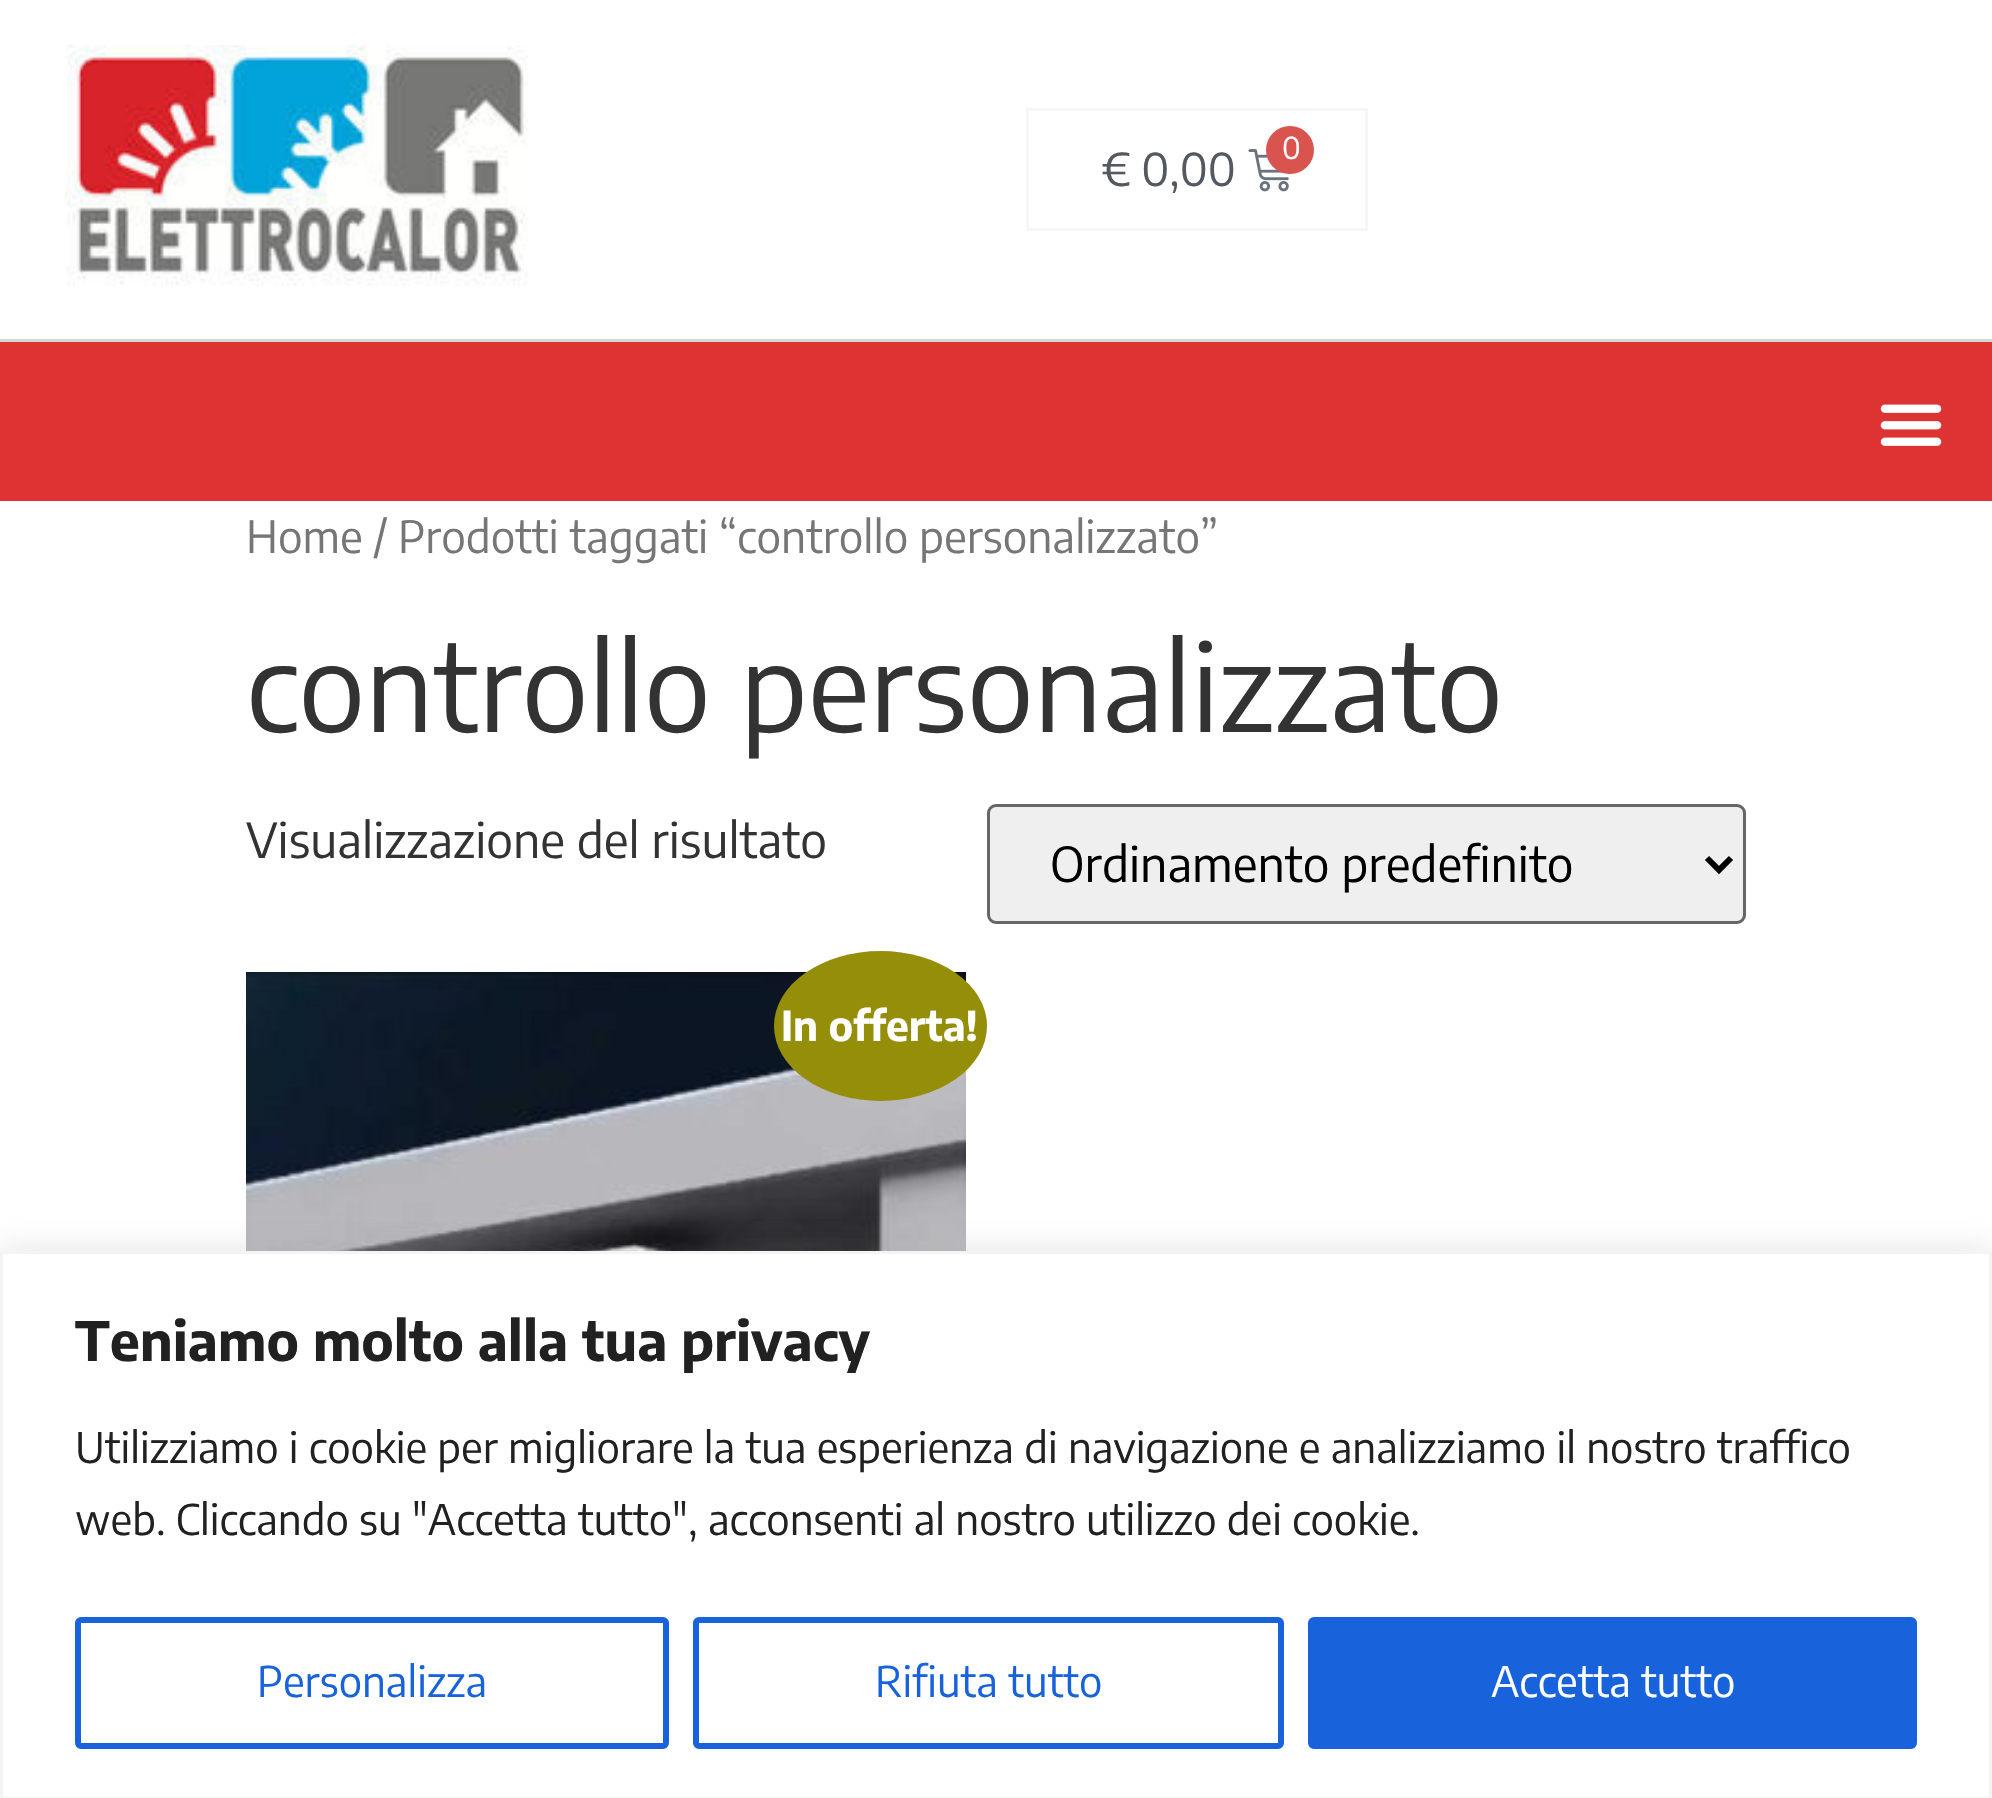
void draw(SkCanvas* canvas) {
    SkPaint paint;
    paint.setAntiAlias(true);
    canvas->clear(0xFFFFFFFF);
    paint.setColor(0xFFD6D6D6);
    canvas->drawRect(SkRect::MakeXYWH(0, 339, 1992, 3), paint);
    canvas->drawImageRect(SkImages::DeferredFromEncodedData(SkData::MakeFromFileName("img1.png")), SkRect::MakeXYWH(65, 45, 464, 241), SkSamplingOptions());
    paint.setStyle(SkPaint::kStroke_Style);
    paint.setStrokeWidth(3);
    paint.setColor(0xFFF6F6F6);
    canvas->drawRect(SkRect::MakeXYWH(1027.5f, 109.5f, 339, 120), paint);
    canvas->drawImageRect(SkImages::DeferredFromEncodedData(SkData::MakeFromFileName("img2.png")), SkRect::MakeXYWH(1248, 149, 41, 43), SkSamplingOptions());
    paint.setStyle(SkPaint::kFill_Style);
    paint.setColor(0xFFD9534F);
    canvas->drawCircle(1290, 150, 24, paint);
    SkFont font1(fontMgr->matchFamilyStyle("Encode Sans Condensed", SkFontStyle::Normal()), 30);
    font1.setSubpixel(true);
    paint.setColor(0xFFFFFFFF);
    canvas->drawString("0", 1282, 159, font1, paint);
    SkFont font2(fontMgr->matchFamilyStyle("Encode Sans Condensed", SkFontStyle::Normal()), 45);
    font2.setSubpixel(true);
    paint.setColor(0xFF54595F);
    canvas->drawString("€ 0,00", 1101, 186, font2, paint);
    paint.setColor(0xFFDD3333);
    canvas->drawRect(SkRect::MakeXYWH(0, 342, 1992, 159), paint);
    canvas->drawImageRect(SkImages::DeferredFromEncodedData(SkData::MakeFromFileName("img3.png")), SkRect::MakeXYWH(1880, 404, 62, 42), SkSamplingOptions());
    SkFont font3(fontMgr->matchFamilyStyle("Encode Sans Condensed", SkFontStyle::Normal()), 44.2f);
    font3.setSubpixel(true);
    paint.setColor(0xFF767676);
    canvas->drawString("Home / Prodotti taggati “controllo personalizzato”", 246, 553, font3, paint);
    SkFont font4(fontMgr->matchFamilyStyle("Encode Sans Condensed", SkFontStyle::Normal()), 120);
    font4.setSubpixel(true);
    paint.setColor(0xFF333333);
    canvas->drawString("controllo personalizzato", 246, 732, font4, paint);
    SkFont font5(fontMgr->matchFamilyStyle("Encode Sans Condensed", SkFontStyle::Normal()), 48);
    font5.setSubpixel(true);
    canvas->drawString("Visualizzazione del risultato", 246, 858, font5, paint);
    paint.setColor(0xFFEFEFEF);
    canvas->drawRoundRect(SkRect::MakeXYWH(988.5f, 805.5f, 756, 117), 7.5f, 7.5f, paint);
    paint.setStyle(SkPaint::kStroke_Style);
    paint.setColor(0xFF666666);
    canvas->drawRoundRect(SkRect::MakeXYWH(988.5f, 805.5f, 756, 117), 7.5f, 7.5f, paint);
    paint.setStrokeWidth(6);
    paint.setColor(0xFF000000);
    canvas->drawPath(SkPathBuilder().moveTo(1707, 858).lineTo(1719, 870).lineTo(1731, 858).detach(), paint);
    paint.setStyle(SkPaint::kFill_Style);
    canvas->drawString("Ordinamento predefinito", 1050, 882, font5, paint);
    canvas->drawImageRect(SkImages::DeferredFromEncodedData(SkData::MakeFromFileName("img4.png")), SkRect::MakeXYWH(246, 972, 720, 279), SkSamplingOptions());
    paint.setColor(0xFF958E09);
    canvas->drawOval(SkRect::MakeXYWH(774, 951, 213, 150), paint);
    SkFont font6(fontMgr->matchFamilyStyle("Encode Sans Condensed", SkFontStyle::Bold()), 41);
    font6.setSubpixel(true);
    paint.setColor(0xFFFFFFFF);
    canvas->drawString("In offerta!", 781, 1041, font6, paint);
    paint.setColor(0x4DACABAB);
    paint.setMaskFilter(SkMaskFilter::MakeBlur(kNormal_SkBlurStyle, 15));
    canvas->drawRect(SkRect::MakeXYWH(0, 1248, 1992, 549), paint);
    paint.setMaskFilter(nullptr);
    paint.setColor(0xFFFFFFFF);
    canvas->drawRect(SkRect::MakeXYWH(1.5f, 1252.5f, 1989, 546), paint);
    paint.setStyle(SkPaint::kStroke_Style);
    paint.setStrokeWidth(3);
    paint.setColor(0xFFF4F4F4);
    canvas->drawRect(SkRect::MakeXYWH(1.5f, 1252.5f, 1989, 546), paint);
    SkFont font7(fontMgr->matchFamilyStyle("Encode Sans Condensed", SkFontStyle::Bold()), 54);
    font7.setSubpixel(true);
    paint.setStyle(SkPaint::kFill_Style);
    paint.setColor(0xFF212121);
    canvas->drawString("Teniamo molto alla tua privacy", 75, 1361, font7, paint);
    SkFont font8(fontMgr->matchFamilyStyle("Encode Sans Condensed", SkFontStyle::Normal()), 42);
    font8.setSubpixel(true);
    canvas->drawString("Utilizziamo i cookie per migliorare la tua esperienza di navigazione e analizziamo il nostro traffico", 75, 1463, font8, paint);
    canvas->drawString("web. Cliccando su \"Accetta tutto\", acconsenti al nostro utilizzo dei cookie.", 75, 1535, font8, paint);
    paint.setStyle(SkPaint::kStroke_Style);
    paint.setStrokeWidth(6);
    paint.setColor(0xFF1863DC);
    canvas->drawRoundRect(SkRect::MakeXYWH(78, 1620, 588, 126), 3, 3, paint);
    paint.setStyle(SkPaint::kFill_Style);
    canvas->drawString("Personalizza", 257, 1697, font8, paint);
    paint.setStyle(SkPaint::kStroke_Style);
    canvas->drawRoundRect(SkRect::MakeXYWH(696, 1620, 585, 126), 3, 3, paint);
    paint.setStyle(SkPaint::kFill_Style);
    canvas->drawString("Rifiuta tutto", 875, 1697, font8, paint);
    canvas->drawRoundRect(SkRect::MakeXYWH(1311, 1620, 603, 126), 3, 3, paint);
    paint.setStyle(SkPaint::kStroke_Style);
    canvas->drawRoundRect(SkRect::MakeXYWH(1311, 1620, 603, 126), 3, 3, paint);
    paint.setStyle(SkPaint::kFill_Style);
    paint.setColor(0xFFFFFFFF);
    canvas->drawString("Accetta tutto", 1491, 1697, font8, paint);
}
